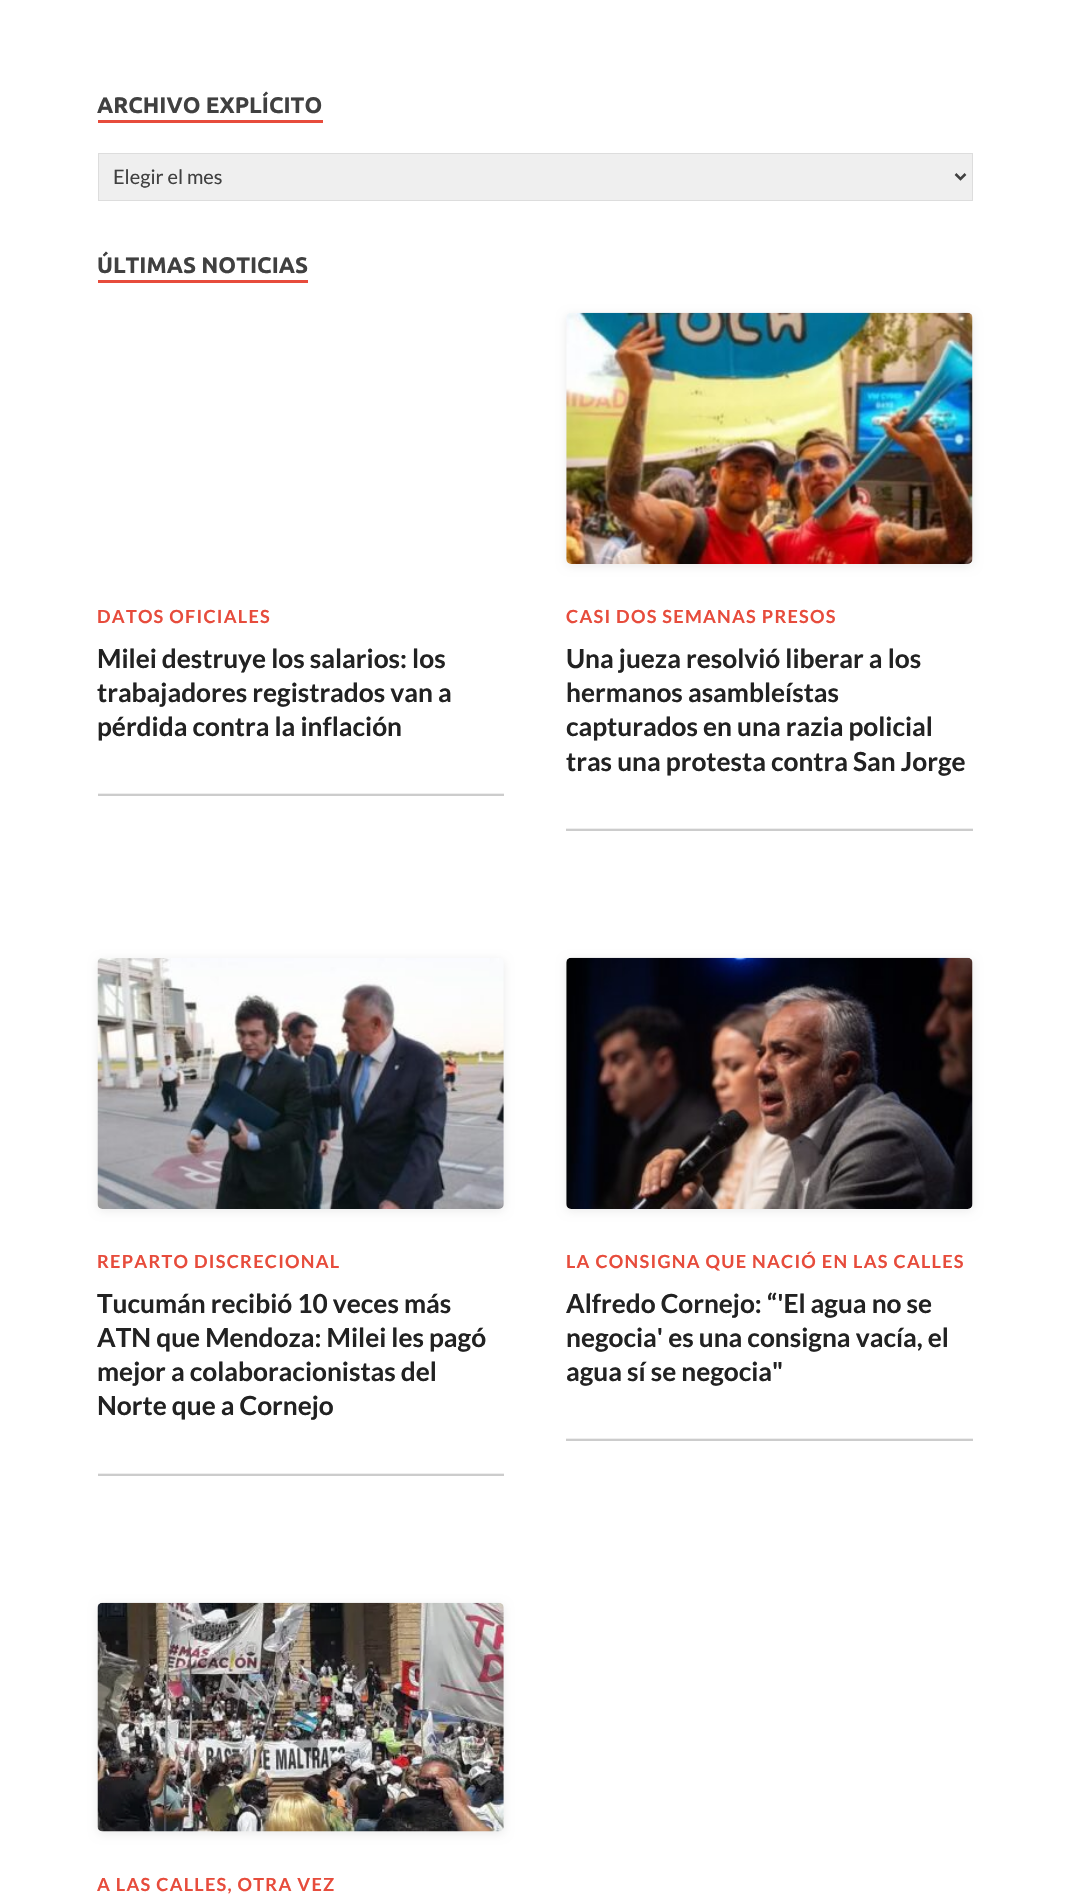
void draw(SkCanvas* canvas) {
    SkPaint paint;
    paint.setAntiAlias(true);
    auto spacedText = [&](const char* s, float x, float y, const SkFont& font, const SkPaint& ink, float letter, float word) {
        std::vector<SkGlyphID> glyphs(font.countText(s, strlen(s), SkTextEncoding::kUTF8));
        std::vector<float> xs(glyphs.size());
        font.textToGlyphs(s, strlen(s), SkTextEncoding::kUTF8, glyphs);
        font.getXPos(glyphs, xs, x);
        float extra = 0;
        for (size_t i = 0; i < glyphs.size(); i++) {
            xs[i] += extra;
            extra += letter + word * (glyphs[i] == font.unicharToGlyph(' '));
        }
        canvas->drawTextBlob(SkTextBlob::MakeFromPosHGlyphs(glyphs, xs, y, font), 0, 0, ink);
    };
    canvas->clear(0xFFFFFFFF);
    paint.setColor(0xFFE74C3C);
    canvas->drawRect(SkRect::MakeXYWH(98, 120, 225, 3), paint);
    SkFont font1(fontMgr->matchFamilyStyle("Ubuntu", SkFontStyle::Bold()), 22.5f);
    font1.setSubpixel(true);
    paint.setColor(0xFF404040);
    canvas->drawString("ARCHIVO EXPLÍCITO", 97, 113, font1, paint);
    paint.setColor(0xFFEFEFEF);
    canvas->drawRect(SkRect::MakeXYWH(98.5f, 153.5f, 874, 47), paint);
    paint.setStyle(SkPaint::kStroke_Style);
    paint.setStrokeWidth(1);
    paint.setColor(0xFFDDDDDD);
    canvas->drawRect(SkRect::MakeXYWH(98.5f, 153.5f, 874, 47), paint);
    paint.setStrokeWidth(2.5f);
    paint.setColor(0xFF404040);
    canvas->drawPath(SkPathBuilder().moveTo(955.5f, 174).lineTo(960.5f, 179).lineTo(965.5f, 174).detach(), paint);
    SkFont font2(fontMgr->matchFamilyStyle("Lato", SkFontStyle::Normal()), 20);
    font2.setSubpixel(true);
    paint.setStyle(SkPaint::kFill_Style);
    canvas->drawString("Elegir el mes", 113, 184, font2, paint);
    paint.setColor(0xFFE74C3C);
    canvas->drawRect(SkRect::MakeXYWH(98, 280, 210, 3), paint);
    paint.setColor(0xFF404040);
    canvas->drawString("ÚLTIMAS NOTICIAS", 97, 273, font1, paint);
    SkFont font3(fontMgr->matchFamilyStyle("Lato", SkFontStyle::Bold()), 18.1f);
    font3.setSubpixel(true);
    paint.setColor(0xFFE74C3C);
    spacedText("DATOS OFICIALES", 97, 623, font3, paint, 1.25f, 0);
    SkFont font4(fontMgr->matchFamilyStyle("Lato", SkFontStyle::Bold()), 26.25f);
    font4.setSubpixel(true);
    paint.setColor(0xFF222222);
    canvas->drawString("Milei destruye los salarios: los", 97, 668, font4, paint);
    canvas->drawString("trabajadores registrados van a", 97, 702, font4, paint);
    canvas->drawString("pérdida contra la inflación", 97, 736, font4, paint);
    paint.setColor(0xFFCCCCCC);
    canvas->drawRect(SkRect::MakeXYWH(98, 794, 406, 2), paint);
    paint.setColor(0xFFEEEEEE);
    canvas->drawRect(SkRect::MakeXYWH(98, 793, 406, 1), paint);
    paint.setColor(0x14000000);
    paint.setMaskFilter(SkMaskFilter::MakeBlur(kNormal_SkBlurStyle, 5));
    canvas->drawRoundRect(SkRect::MakeXYWH(566, 315, 407, 251), 5, 5, paint);
    paint.setMaskFilter(nullptr);
    canvas->drawImageRect(SkImages::DeferredFromEncodedData(SkData::MakeFromFileName("img1.png")), SkRect::MakeXYWH(566, 312, 407, 252), SkSamplingOptions());
    paint.setColor(0xFFE74C3C);
    spacedText("CASI DOS SEMANAS PRESOS", 566, 623, font3, paint, 1.25f, 0);
    paint.setColor(0xFF222222);
    canvas->drawString("Una jueza resolvió liberar a los", 566, 668, font4, paint);
    canvas->drawString("hermanos asambleístas", 566, 702, font4, paint);
    canvas->drawString("capturados en una razia policial", 566, 736, font4, paint);
    canvas->drawString("tras una protesta contra San Jorge", 566, 771, font4, paint);
    paint.setColor(0xFFCCCCCC);
    canvas->drawRect(SkRect::MakeXYWH(566, 829, 407, 2), paint);
    paint.setColor(0xFFEEEEEE);
    canvas->drawRect(SkRect::MakeXYWH(566, 828, 407, 1), paint);
    paint.setColor(0x14000000);
    paint.setMaskFilter(SkMaskFilter::MakeBlur(kNormal_SkBlurStyle, 5));
    canvas->drawRoundRect(SkRect::MakeXYWH(98, 960, 406, 251), 5, 5, paint);
    paint.setMaskFilter(nullptr);
    canvas->drawImageRect(SkImages::DeferredFromEncodedData(SkData::MakeFromFileName("img2.png")), SkRect::MakeXYWH(97, 958, 407, 251), SkSamplingOptions());
    paint.setColor(0xFFE74C3C);
    spacedText("REPARTO DISCRECIONAL", 97, 1268, font3, paint, 1.25f, 0);
    paint.setColor(0xFF222222);
    canvas->drawString("Tucumán recibió 10 veces más", 97, 1313, font4, paint);
    canvas->drawString("ATN que Mendoza: Milei les pagó", 97, 1347, font4, paint);
    canvas->drawString("mejor a colaboracionistas del", 97, 1381, font4, paint);
    canvas->drawString("Norte que a Cornejo", 97, 1415, font4, paint);
    paint.setColor(0xFFCCCCCC);
    canvas->drawRect(SkRect::MakeXYWH(98, 1474, 406, 2), paint);
    paint.setColor(0xFFEEEEEE);
    canvas->drawRect(SkRect::MakeXYWH(98, 1473, 406, 1), paint);
    paint.setColor(0x14000000);
    paint.setMaskFilter(SkMaskFilter::MakeBlur(kNormal_SkBlurStyle, 5));
    canvas->drawRoundRect(SkRect::MakeXYWH(566, 960, 407, 251), 5, 5, paint);
    paint.setMaskFilter(nullptr);
    canvas->drawImageRect(SkImages::DeferredFromEncodedData(SkData::MakeFromFileName("img3.png")), SkRect::MakeXYWH(566, 957, 407, 252), SkSamplingOptions());
    paint.setColor(0xFFE74C3C);
    spacedText("LA CONSIGNA QUE NACIÓ EN LAS CALLES", 566, 1268, font3, paint, 1.25f, 0);
    paint.setColor(0xFF222222);
    canvas->drawString("Alfredo Cornejo: “'El agua no se", 566, 1313, font4, paint);
    canvas->drawString("negocia' es una consigna vacía, el", 566, 1347, font4, paint);
    canvas->drawString("agua sí se negocia\"", 566, 1381, font4, paint);
    paint.setColor(0xFFCCCCCC);
    canvas->drawRect(SkRect::MakeXYWH(566, 1439, 407, 2), paint);
    paint.setColor(0xFFEEEEEE);
    canvas->drawRect(SkRect::MakeXYWH(566, 1438, 407, 1), paint);
    paint.setColor(0x14000000);
    paint.setMaskFilter(SkMaskFilter::MakeBlur(kNormal_SkBlurStyle, 5));
    canvas->drawRoundRect(SkRect::MakeXYWH(98, 1605, 406, 229), 5, 5, paint);
    paint.setMaskFilter(nullptr);
    canvas->drawImageRect(SkImages::DeferredFromEncodedData(SkData::MakeFromFileName("img4.png")), SkRect::MakeXYWH(97, 1602, 407, 230), SkSamplingOptions());
    paint.setColor(0xFFE74C3C);
    spacedText("A LAS CALLES, OTRA VEZ", 97, 1891, font3, paint, 1.25f, 0);
}
